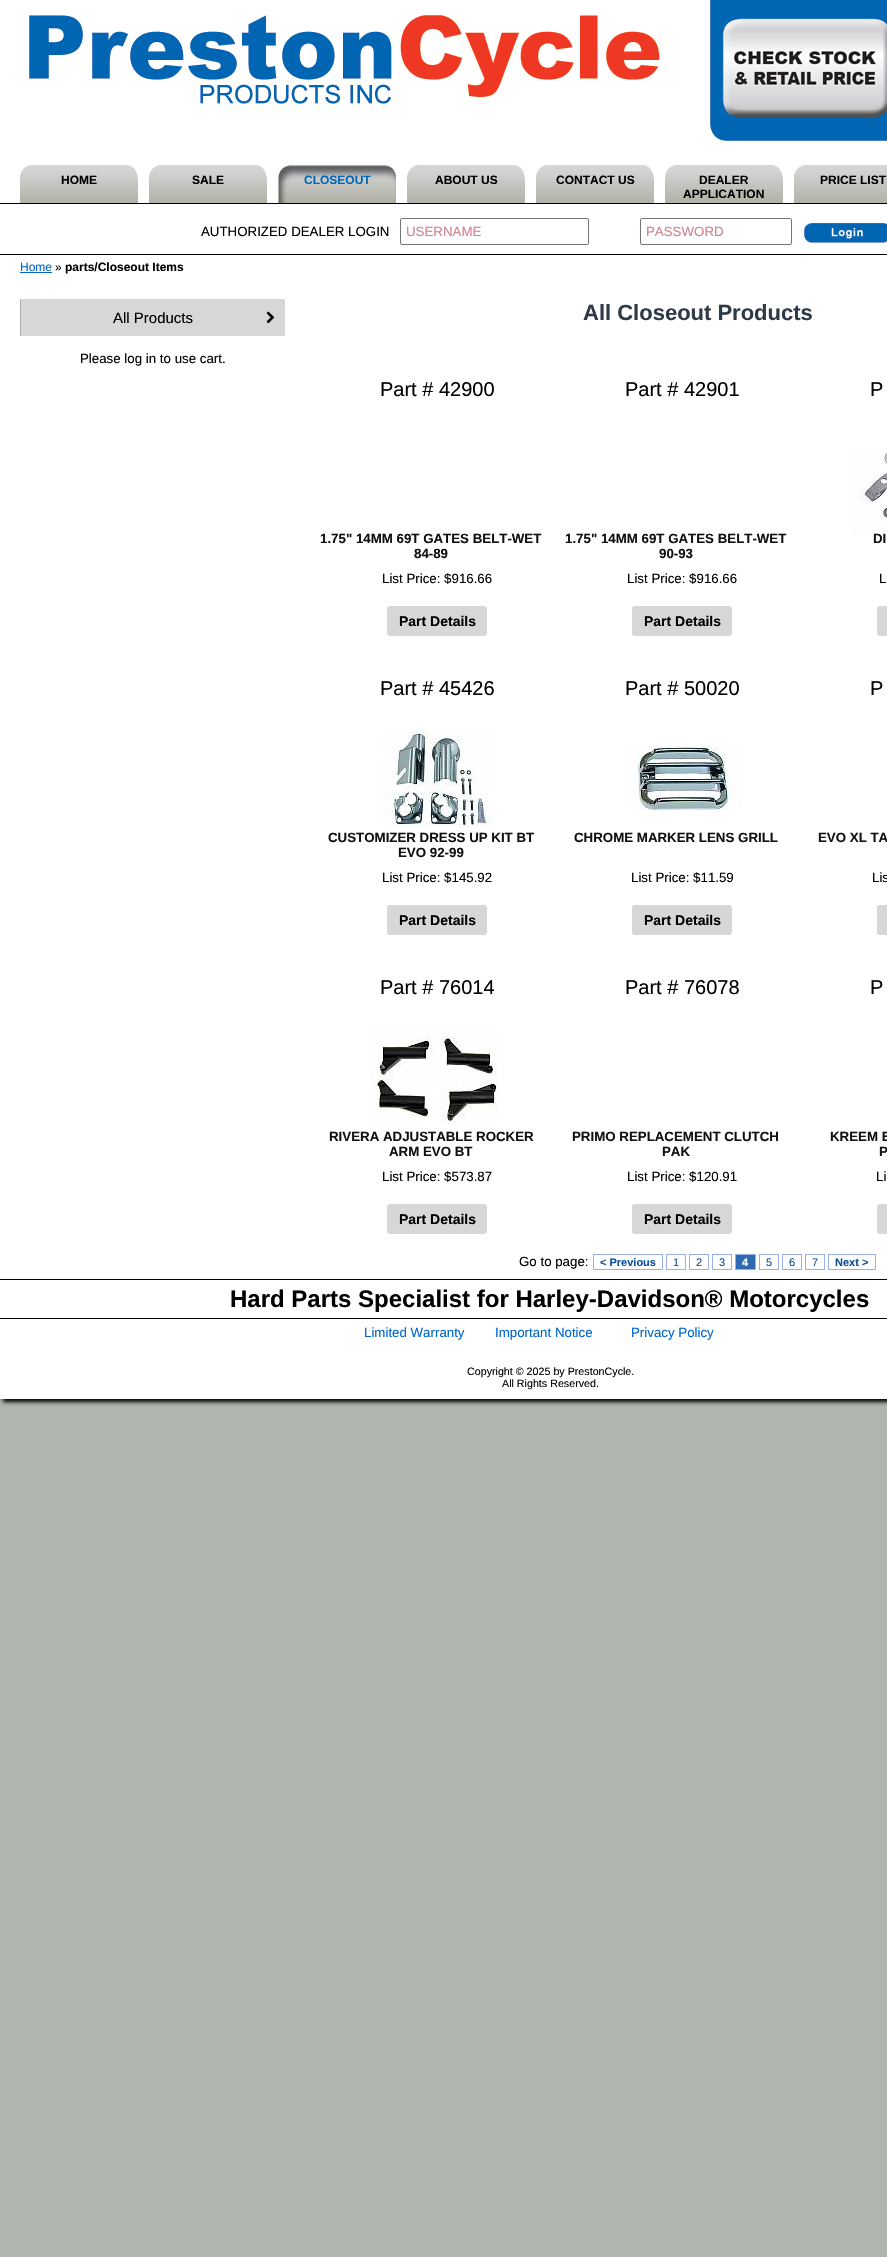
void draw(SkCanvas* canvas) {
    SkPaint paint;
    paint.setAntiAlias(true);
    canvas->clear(0xFFB0B5AF);
    paint.setColor(0xFF000000);
    paint.setMaskFilter(SkMaskFilter::MakeBlur(kNormal_SkBlurStyle, 2));
    canvas->drawRect(SkRect::MakeXYWH(3, 3, 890, 1399), paint);
    paint.setMaskFilter(nullptr);
    paint.setColor(0xFFFFFFFF);
    canvas->drawRect(SkRect::MakeXYWH(0, 0, 887, 1399), paint);
    canvas->drawImageRect(SkImages::DeferredFromEncodedData(SkData::MakeFromFileName("img1.png")), SkRect::MakeXYWH(29, 12, 631, 93), SkSamplingOptions());
    canvas->drawImageRect(SkImages::DeferredFromEncodedData(SkData::MakeFromFileName("img2.png")), SkRect::MakeXYWH(710, 0, 177, 141), SkSamplingOptions());
    canvas->drawImageRect(SkImages::DeferredFromEncodedData(SkData::MakeFromFileName("img3.png")), SkRect::MakeXYWH(722, 18, 165, 100), SkSamplingOptions());
    paint.setColor(0xFF000000);
    canvas->drawRect(SkRect::MakeXYWH(0, 203, 887, 1), paint);
    canvas->drawImageRect(SkImages::DeferredFromEncodedData(SkData::MakeFromFileName("img4.png")), SkRect::MakeXYWH(20, 165, 118, 38), SkSamplingOptions());
    SkFont font1(fontMgr->matchFamilyStyle("Liberation Sans", SkFontStyle::Bold()), 12);
    font1.setSubpixel(true);
    canvas->drawString("HOME", 61, 184, font1, paint);
    canvas->drawImageRect(SkImages::DeferredFromEncodedData(SkData::MakeFromFileName("img4.png")), SkRect::MakeXYWH(149, 165, 118, 38), SkSamplingOptions());
    canvas->drawString("SALE", 192, 184, font1, paint);
    canvas->drawImageRect(SkImages::DeferredFromEncodedData(SkData::MakeFromFileName("img5.png")), SkRect::MakeXYWH(278, 165, 118, 38), SkSamplingOptions());
    paint.setColor(0xFF0067B3);
    canvas->drawString("CLOSEOUT", 304, 184, font1, paint);
    canvas->drawImageRect(SkImages::DeferredFromEncodedData(SkData::MakeFromFileName("img4.png")), SkRect::MakeXYWH(407, 165, 118, 38), SkSamplingOptions());
    paint.setColor(0xFF000000);
    canvas->drawString("ABOUT US", 435, 184, font1, paint);
    canvas->drawImageRect(SkImages::DeferredFromEncodedData(SkData::MakeFromFileName("img4.png")), SkRect::MakeXYWH(536, 165, 118, 38), SkSamplingOptions());
    canvas->drawString("CONTACT US", 556, 184, font1, paint);
    canvas->drawImageRect(SkImages::DeferredFromEncodedData(SkData::MakeFromFileName("img4.png")), SkRect::MakeXYWH(665, 165, 118, 38), SkSamplingOptions());
    canvas->drawString("DEALER", 699, 184, font1, paint);
    canvas->drawString("APPLICATION", 683, 198, font1, paint);
    canvas->drawImageRect(SkImages::DeferredFromEncodedData(SkData::MakeFromFileName("img6.png")), SkRect::MakeXYWH(794, 165, 93, 38), SkSamplingOptions());
    canvas->drawString("PRICE LIST", 820, 184, font1, paint);
    canvas->drawRect(SkRect::MakeXYWH(0, 254, 887, 1), paint);
    SkFont font2(fontMgr->matchFamilyStyle("Liberation Sans", SkFontStyle::Normal()), 13.3f);
    font2.setSubpixel(true);
    canvas->drawString("AUTHORIZED DEALER LOGIN", 201, 236, font2, paint);
    paint.setStyle(SkPaint::kStroke_Style);
    paint.setStrokeWidth(1);
    paint.setColor(0xFF767676);
    canvas->drawRoundRect(SkRect::MakeXYWH(400.5f, 218.5f, 188, 26), 1.5f, 1.5f, paint);
    paint.setStyle(SkPaint::kFill_Style);
    paint.setColor(0xFFD18290);
    canvas->drawString("USERNAME", 406, 236, font2, paint);
    paint.setStyle(SkPaint::kStroke_Style);
    paint.setColor(0xFF767676);
    canvas->drawRoundRect(SkRect::MakeXYWH(640.5f, 218.5f, 151, 26), 1.5f, 1.5f, paint);
    paint.setStyle(SkPaint::kFill_Style);
    paint.setColor(0xFFD18290);
    canvas->drawString("PASSWORD", 646, 236, font2, paint);
    canvas->drawImageRect(SkImages::DeferredFromEncodedData(SkData::MakeFromFileName("img7.png")), SkRect::MakeXYWH(804, 223, 83, 20), SkSamplingOptions());
    SkFont font3(fontMgr->matchFamilyStyle("Liberation Sans", SkFontStyle::Normal()), 12);
    font3.setSubpixel(true);
    paint.setColor(0xFF0066CC);
    canvas->drawString("Home", 20, 271, font3, paint);
    canvas->drawRect(SkRect::MakeXYWH(20, 272, 32, 1), paint);
    paint.setColor(0xFF000000);
    canvas->drawString("»", 55, 271, font3, paint);
    canvas->drawString("parts/Closeout Items", 65, 271, font1, paint);
    paint.setColor(0xFFD6D7D8);
    canvas->drawRect(SkRect::MakeXYWH(21, 299, 264, 37), paint);
    paint.setColor(0xFFAAAAAA);
    canvas->drawRect(SkRect::MakeXYWH(20, 299, 1, 37), paint);
    SkFont font4(fontMgr->matchFamilyStyle("Liberation Sans", SkFontStyle::Normal()), 15);
    font4.setSubpixel(true);
    paint.setColor(0xFF000000);
    canvas->drawString("All Products", 113, 323, font4, paint);
    canvas->drawImageRect(SkImages::DeferredFromEncodedData(SkData::MakeFromFileName("img8.png")), SkRect::MakeXYWH(266, 311, 9, 13), SkSamplingOptions());
    canvas->drawString("Please log in to use cart.", 80, 363, font2, paint);
    SkFont font5(fontMgr->matchFamilyStyle("Liberation Sans", SkFontStyle::Bold()), 22);
    font5.setSubpixel(true);
    paint.setColor(0xFF2E3A47);
    canvas->drawString("All Closeout Products", 583, 320, font5, paint);
    SkFont font6(fontMgr->matchFamilyStyle("Liberation Sans", SkFontStyle::Normal()), 20);
    font6.setSubpixel(true);
    paint.setColor(0xFF000000);
    canvas->drawString("Part # 42900", 380, 396, font6, paint);
    SkFont font7(fontMgr->matchFamilyStyle("Liberation Sans", SkFontStyle::Bold()), 13.3f);
    font7.setSubpixel(true);
    paint.setColor(0xFF111111);
    canvas->drawString("1.75\" 14MM 69T GATES BELT-WET", 320, 543, font7, paint);
    canvas->drawString("84-89", 414, 558, font7, paint);
    paint.setColor(0xFF000000);
    canvas->drawString("List Price: $916.66", 382, 583, font2, paint);
    paint.setColor(0xFFD6D7D8);
    canvas->drawRoundRect(SkRect::MakeXYWH(387, 606, 100, 30), 3, 3, paint);
    SkFont font8(fontMgr->matchFamilyStyle("Liberation Sans", SkFontStyle::Bold()), 14);
    font8.setSubpixel(true);
    paint.setColor(0xFF000000);
    canvas->drawString("Part Details", 399, 626, font8, paint);
    canvas->drawString("Part # 42901", 625, 396, font6, paint);
    paint.setColor(0xFF111111);
    canvas->drawString("1.75\" 14MM 69T GATES BELT-WET", 565, 543, font7, paint);
    canvas->drawString("90-93", 659, 558, font7, paint);
    paint.setColor(0xFF000000);
    canvas->drawString("List Price: $916.66", 627, 583, font2, paint);
    paint.setColor(0xFFD6D7D8);
    canvas->drawRoundRect(SkRect::MakeXYWH(632, 606, 100, 30), 3, 3, paint);
    paint.setColor(0xFF000000);
    canvas->drawString("Part Details", 644, 626, font8, paint);
    canvas->drawString("P", 870, 396, font6, paint);
    canvas->drawImageRect(SkImages::DeferredFromEncodedData(SkData::MakeFromFileName("img9.png")), SkRect::MakeXYWH(852, 447, 35, 84), SkSamplingOptions());
    paint.setColor(0xFF111111);
    canvas->drawString("DI", 873, 543, font7, paint);
    paint.setColor(0xFF000000);
    canvas->drawString("L", 879, 583, font2, paint);
    paint.setColor(0xFFD6D7D8);
    canvas->drawRoundRect(SkRect::MakeXYWH(877, 606, 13, 30), 3, 3, paint);
    paint.setColor(0xFF000000);
    canvas->drawString("Part # 45426", 380, 695, font6, paint);
    canvas->drawImageRect(SkImages::DeferredFromEncodedData(SkData::MakeFromFileName("img10.png")), SkRect::MakeXYWH(381, 730, 112, 97), SkSamplingOptions());
    paint.setColor(0xFF111111);
    canvas->drawString("CUSTOMIZER DRESS UP KIT BT", 328, 842, font7, paint);
    canvas->drawString("EVO 92-99", 398, 857, font7, paint);
    paint.setColor(0xFF000000);
    canvas->drawString("List Price: $145.92", 382, 882, font2, paint);
    paint.setColor(0xFFD6D7D8);
    canvas->drawRoundRect(SkRect::MakeXYWH(387, 905, 100, 30), 3, 3, paint);
    paint.setColor(0xFF000000);
    canvas->drawString("Part Details", 399, 925, font8, paint);
    canvas->drawString("Part # 50020", 625, 695, font6, paint);
    canvas->drawImageRect(SkImages::DeferredFromEncodedData(SkData::MakeFromFileName("img11.png")), SkRect::MakeXYWH(630, 746, 112, 65), SkSamplingOptions());
    paint.setColor(0xFF111111);
    canvas->drawString("CHROME MARKER LENS GRILL", 574, 842, font7, paint);
    paint.setColor(0xFF000000);
    canvas->drawString("List Price: $11.59", 631, 882, font2, paint);
    paint.setColor(0xFFD6D7D8);
    canvas->drawRoundRect(SkRect::MakeXYWH(632, 905, 100, 30), 3, 3, paint);
    paint.setColor(0xFF000000);
    canvas->drawString("Part Details", 644, 925, font8, paint);
    canvas->drawString("P", 870, 695, font6, paint);
    paint.setColor(0xFF111111);
    canvas->drawString("EVO XL TA", 818, 842, font7, paint);
    paint.setColor(0xFF000000);
    canvas->drawString("Lis", 872, 882, font2, paint);
    paint.setColor(0xFFD6D7D8);
    canvas->drawRoundRect(SkRect::MakeXYWH(877, 905, 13, 30), 3, 3, paint);
    paint.setColor(0xFF000000);
    canvas->drawString("Part # 76014", 380, 994, font6, paint);
    canvas->drawImageRect(SkImages::DeferredFromEncodedData(SkData::MakeFromFileName("img12.png")), SkRect::MakeXYWH(370, 1029, 128, 96), SkSamplingOptions());
    paint.setColor(0xFF111111);
    canvas->drawString("RIVERA ADJUSTABLE ROCKER", 329, 1141, font7, paint);
    canvas->drawString("ARM EVO BT", 389, 1156, font7, paint);
    paint.setColor(0xFF000000);
    canvas->drawString("List Price: $573.87", 382, 1181, font2, paint);
    paint.setColor(0xFFD6D7D8);
    canvas->drawRoundRect(SkRect::MakeXYWH(387, 1204, 100, 30), 3, 3, paint);
    paint.setColor(0xFF000000);
    canvas->drawString("Part Details", 399, 1224, font8, paint);
    canvas->drawString("Part # 76078", 625, 994, font6, paint);
    paint.setColor(0xFF111111);
    canvas->drawString("PRIMO REPLACEMENT CLUTCH", 572, 1141, font7, paint);
    canvas->drawString("PAK", 662, 1156, font7, paint);
    paint.setColor(0xFF000000);
    canvas->drawString("List Price: $120.91", 627, 1181, font2, paint);
    paint.setColor(0xFFD6D7D8);
    canvas->drawRoundRect(SkRect::MakeXYWH(632, 1204, 100, 30), 3, 3, paint);
    paint.setColor(0xFF000000);
    canvas->drawString("Part Details", 644, 1224, font8, paint);
    canvas->drawString("P", 870, 994, font6, paint);
    paint.setColor(0xFF111111);
    canvas->drawString("KREEM B", 830, 1141, font7, paint);
    canvas->drawString("P", 879, 1156, font7, paint);
    paint.setColor(0xFF000000);
    canvas->drawString("Li", 876, 1181, font2, paint);
    paint.setColor(0xFFD6D7D8);
    canvas->drawRoundRect(SkRect::MakeXYWH(877, 1204, 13, 30), 3, 3, paint);
    paint.setColor(0xFF000000);
    canvas->drawString("Go to page:", 519, 1266, font2, paint);
    paint.setStyle(SkPaint::kStroke_Style);
    paint.setColor(0xFF9AAFE5);
    canvas->drawRect(SkRect::MakeXYWH(593.5f, 1254.5f, 69, 15), paint);
    SkFont font9(fontMgr->matchFamilyStyle("Liberation Sans", SkFontStyle::Bold()), 11);
    font9.setSubpixel(true);
    paint.setStyle(SkPaint::kFill_Style);
    paint.setColor(0xFF0E509E);
    canvas->drawString("< Previous", 600, 1266, font9, paint);
    paint.setStyle(SkPaint::kStroke_Style);
    paint.setColor(0xFF9AAFE5);
    canvas->drawRect(SkRect::MakeXYWH(666.5f, 1254.5f, 19, 15), paint);
    SkFont font10(fontMgr->matchFamilyStyle("Liberation Sans", SkFontStyle::Normal()), 11);
    font10.setSubpixel(true);
    paint.setStyle(SkPaint::kFill_Style);
    paint.setColor(0xFF0E509E);
    canvas->drawString("1", 673, 1266, font10, paint);
    paint.setStyle(SkPaint::kStroke_Style);
    paint.setColor(0xFF9AAFE5);
    canvas->drawRect(SkRect::MakeXYWH(689.5f, 1254.5f, 19, 15), paint);
    paint.setStyle(SkPaint::kFill_Style);
    paint.setColor(0xFF0E509E);
    canvas->drawString("2", 696, 1266, font10, paint);
    paint.setStyle(SkPaint::kStroke_Style);
    paint.setColor(0xFF9AAFE5);
    canvas->drawRect(SkRect::MakeXYWH(712.5f, 1254.5f, 19, 15), paint);
    paint.setStyle(SkPaint::kFill_Style);
    paint.setColor(0xFF0E509E);
    canvas->drawString("3", 719, 1266, font10, paint);
    paint.setColor(0xFF2E6AB1);
    canvas->drawRect(SkRect::MakeXYWH(735.5f, 1254.5f, 20, 15), paint);
    paint.setStyle(SkPaint::kStroke_Style);
    paint.setColor(0xFF9AAFE5);
    canvas->drawRect(SkRect::MakeXYWH(735.5f, 1254.5f, 20, 15), paint);
    paint.setStyle(SkPaint::kFill_Style);
    paint.setColor(0xFFFFFFFF);
    canvas->drawString("4", 742, 1266, font9, paint);
    paint.setStyle(SkPaint::kStroke_Style);
    paint.setColor(0xFF9AAFE5);
    canvas->drawRect(SkRect::MakeXYWH(759.5f, 1254.5f, 19, 15), paint);
    paint.setStyle(SkPaint::kFill_Style);
    paint.setColor(0xFF0E509E);
    canvas->drawString("5", 766, 1266, font10, paint);
    paint.setStyle(SkPaint::kStroke_Style);
    paint.setColor(0xFF9AAFE5);
    canvas->drawRect(SkRect::MakeXYWH(782.5f, 1254.5f, 19, 15), paint);
    paint.setStyle(SkPaint::kFill_Style);
    paint.setColor(0xFF0E509E);
    canvas->drawString("6", 789, 1266, font10, paint);
    paint.setStyle(SkPaint::kStroke_Style);
    paint.setColor(0xFF9AAFE5);
    canvas->drawRect(SkRect::MakeXYWH(805.5f, 1254.5f, 19, 15), paint);
    paint.setStyle(SkPaint::kFill_Style);
    paint.setColor(0xFF0E509E);
    canvas->drawString("7", 812, 1266, font10, paint);
    paint.setStyle(SkPaint::kStroke_Style);
    paint.setColor(0xFF9AAFE5);
    canvas->drawRect(SkRect::MakeXYWH(828.5f, 1254.5f, 47, 15), paint);
    paint.setStyle(SkPaint::kFill_Style);
    paint.setColor(0xFF0E509E);
    canvas->drawString("Next >", 835, 1266, font9, paint);
    paint.setColor(0xFF000000);
    canvas->drawRect(SkRect::MakeXYWH(0, 1279, 887, 1), paint);
    SkFont font11(fontMgr->matchFamilyStyle("Liberation Sans", SkFontStyle::Bold()), 24);
    font11.setSubpixel(true);
    canvas->drawString("Hard Parts Specialist for Harley-Davidson® Motorcycles", 230, 1307, font11, paint);
    canvas->drawRect(SkRect::MakeXYWH(0, 1318, 887, 1), paint);
    paint.setColor(0xFF0066CC);
    canvas->drawString("Limited Warranty", 364, 1337, font2, paint);
    canvas->drawString("Important Notice", 495, 1337, font2, paint);
    canvas->drawString("Privacy Policy", 631, 1337, font2, paint);
    SkFont font12(fontMgr->matchFamilyStyle("Liberation Sans", SkFontStyle::Normal()), 10.7f);
    font12.setSubpixel(true);
    paint.setColor(0xFF000000);
    canvas->drawString("Copyright © 2025 by PrestonCycle.", 467, 1375, font12, paint);
    canvas->drawString("All Rights Reserved.", 502, 1387, font12, paint);
}
